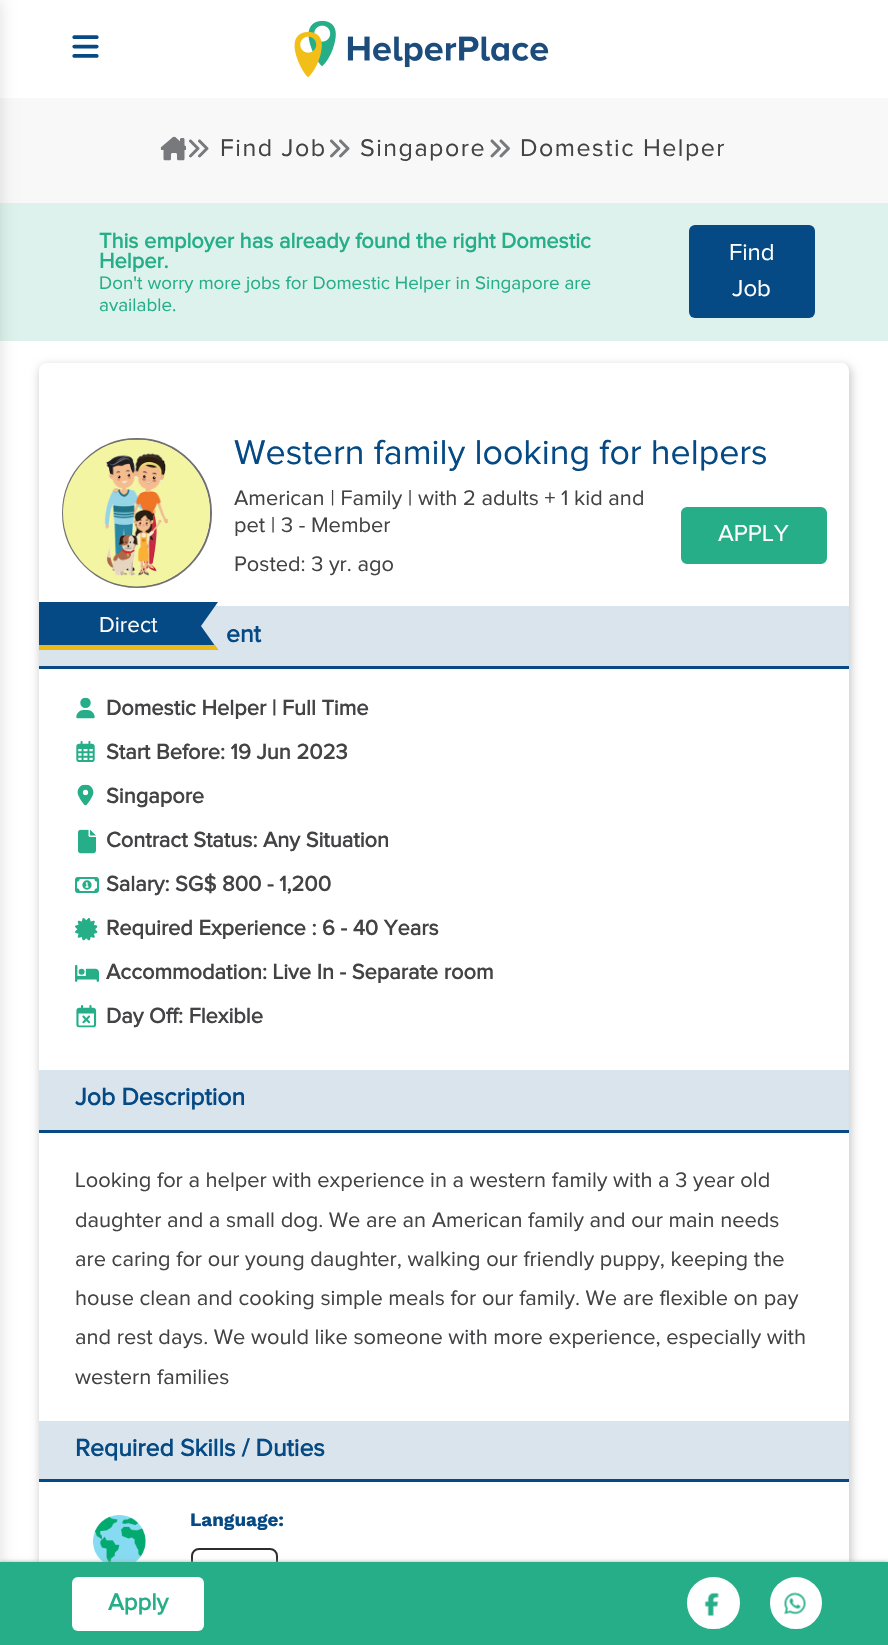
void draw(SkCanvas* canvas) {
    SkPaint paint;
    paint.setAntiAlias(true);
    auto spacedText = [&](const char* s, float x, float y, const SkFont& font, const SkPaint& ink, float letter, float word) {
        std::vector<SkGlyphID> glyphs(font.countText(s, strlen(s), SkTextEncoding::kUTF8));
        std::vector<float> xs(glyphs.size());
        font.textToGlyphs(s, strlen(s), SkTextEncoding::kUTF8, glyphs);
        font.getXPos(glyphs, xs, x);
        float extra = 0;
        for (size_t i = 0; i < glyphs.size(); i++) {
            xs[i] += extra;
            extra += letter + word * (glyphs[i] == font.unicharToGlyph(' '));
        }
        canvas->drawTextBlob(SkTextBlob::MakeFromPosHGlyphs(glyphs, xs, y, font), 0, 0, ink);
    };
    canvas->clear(0xFFFFFFFF);
    paint.setColor(0xFFF8F8F8);
    canvas->drawRect(SkRect::MakeXYWH(0, 98, 888, 105), paint);
    paint.setColor(0xFFDDF2EC);
    canvas->drawRect(SkRect::MakeXYWH(0, 203, 888, 138), paint);
    paint.setColor(0x21000000);
    paint.setMaskFilter(SkMaskFilter::MakeBlur(kNormal_SkBlurStyle, 8));
    canvas->drawRect(SkRect::MakeXYWH(-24, 0, 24, 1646), paint);
    paint.setMaskFilter(nullptr);
    canvas->drawImageRect(SkImages::DeferredFromEncodedData(SkData::MakeFromFileName("img1.png")), SkRect::MakeXYWH(72, 35, 27, 23), SkSamplingOptions());
    canvas->drawImageRect(SkImages::DeferredFromEncodedData(SkData::MakeFromFileName("img2.png")), SkRect::MakeXYWH(294, 20, 255, 58), SkSamplingOptions());
    canvas->drawImageRect(SkImages::DeferredFromEncodedData(SkData::MakeFromFileName("img3.png")), SkRect::MakeXYWH(160, 136, 26, 25), SkSamplingOptions());
    canvas->drawImageRect(SkImages::DeferredFromEncodedData(SkData::MakeFromFileName("img4.png")), SkRect::MakeXYWH(189, 139, 20, 19), SkSamplingOptions());
    SkFont font1(fontMgr->matchFamilyStyle("Proxima Nova", SkFontStyle::Normal()), 25);
    font1.setSubpixel(true);
    paint.setColor(0xFF434345);
    spacedText("Find Job", 220, 156, font1, paint, 1.5f, 0);
    canvas->drawImageRect(SkImages::DeferredFromEncodedData(SkData::MakeFromFileName("img4.png")), SkRect::MakeXYWH(330, 139, 20, 19), SkSamplingOptions());
    spacedText("Singapore", 360, 156, font1, paint, 1.5f, 0);
    canvas->drawImageRect(SkImages::DeferredFromEncodedData(SkData::MakeFromFileName("img5.png")), SkRect::MakeXYWH(490, 139, 20, 19), SkSamplingOptions());
    spacedText("Domestic Helper", 520, 156, font1, paint, 1.5f, 0);
    SkFont font2(fontMgr->matchFamilyStyle("Proxima Nova", SkFontStyle::Bold()), 21.8f);
    font2.setSubpixel(true);
    paint.setColor(0xFF25AE88);
    canvas->drawString("This employer has already found the right Domestic", 99, 248, font2, paint);
    canvas->drawString("Helper.", 99, 268, font2, paint);
    SkFont font3(fontMgr->matchFamilyStyle("Proxima Nova", SkFontStyle::Normal()), 18.8f);
    font3.setSubpixel(true);
    canvas->drawString("Don't worry more jobs for Domestic Helper in Singapore are", 99, 289, font3, paint);
    canvas->drawString("available.", 99, 311, font3, paint);
    paint.setColor(0xFF054A84);
    canvas->drawRoundRect(SkRect::MakeXYWH(689, 225, 126, 93), 6, 6, paint);
    SkFont font4(fontMgr->matchFamilyStyle("Proxima Nova", SkFontStyle::Normal()), 24);
    font4.setSubpixel(true);
    paint.setColor(0xFFFFFFFF);
    canvas->drawString("Find", 729, 260, font4, paint);
    canvas->drawString("Job", 732, 296, font4, paint);
    canvas->save();
    canvas->clipPath(SkPathBuilder(SkPathFillType::kEvenOdd).moveTo(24, 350).lineTo(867, 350).lineTo(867, 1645).lineTo(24, 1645).close().moveTo(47, 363).lineTo(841, 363).cubicTo(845.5f, 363, 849, 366.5f, 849, 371).lineTo(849, 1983).cubicTo(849, 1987.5f, 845.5f, 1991, 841, 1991).lineTo(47, 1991).cubicTo(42.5f, 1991, 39, 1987.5f, 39, 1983).lineTo(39, 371).cubicTo(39, 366.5f, 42.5f, 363, 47, 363).close().detach(), true);
    paint.setColor(0xFFCFCFCF);
    paint.setMaskFilter(SkMaskFilter::MakeBlur(kNormal_SkBlurStyle, 4.5f));
    canvas->drawRoundRect(SkRect::MakeXYWH(39, 365, 813, 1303), 9, 9, paint);
    paint.setMaskFilter(nullptr);
    canvas->restore();
    paint.setStyle(SkPaint::kStroke_Style);
    paint.setStrokeWidth(2);
    paint.setColor(0xFF707070);
    canvas->drawCircle(137, 513, 74, paint);
    canvas->drawImageRect(SkImages::DeferredFromEncodedData(SkData::MakeFromFileName("img6.png")), SkRect::MakeXYWH(63, 439, 147, 148), SkSamplingOptions());
    SkFont font5(fontMgr->matchFamilyStyle("Proxima Nova", SkFontStyle::Normal()), 35.75f);
    font5.setSubpixel(true);
    paint.setStyle(SkPaint::kFill_Style);
    paint.setColor(0xFF054A84);
    canvas->drawString("Western family looking for helpers", 234, 464, font5, paint);
    SkFont font6(fontMgr->matchFamilyStyle("Proxima Nova", SkFontStyle::Normal()), 21.8f);
    font6.setSubpixel(true);
    paint.setColor(0xFF434345);
    canvas->drawString("American | Family | with 2 adults + 1 kid and", 234, 505, font6, paint);
    canvas->drawString("pet | 3 - Member", 234, 532, font6, paint);
    canvas->drawString("Posted: 3 yr. ago", 234, 571, font6, paint);
    paint.setColor(0xFF25AE88);
    canvas->drawRoundRect(SkRect::MakeXYWH(682, 508, 144, 55), 5, 5, paint);
    paint.setStyle(SkPaint::kStroke_Style);
    canvas->drawRoundRect(SkRect::MakeXYWH(682, 508, 144, 55), 5, 5, paint);
    paint.setStyle(SkPaint::kFill_Style);
    paint.setColor(0xFFFFFFFF);
    canvas->drawString("APPLY", 718, 541, font4, paint);
    paint.setColor(0xFFDAE4ED);
    canvas->drawRect(SkRect::MakeXYWH(39, 606, 810, 60), paint);
    paint.setColor(0xFF054A84);
    canvas->drawPath(SkPathBuilder().moveTo(39, 602).lineTo(39, 650).lineTo(218, 650).lineTo(201, 626).lineTo(218, 602).close().detach(), paint);
    paint.setColor(0xFFEBBA16);
    canvas->drawPath(SkPathBuilder().moveTo(39, 645).lineTo(39, 650).lineTo(218, 650).lineTo(215, 645).close().detach(), paint);
    SkFont font7(fontMgr->matchFamilyStyle("Proxima Nova", SkFontStyle::Normal()), 22.5f);
    font7.setSubpixel(true);
    paint.setColor(0xFFFFFFFF);
    canvas->drawString("Direct", 99, 632, font7, paint);
    paint.setColor(0xFF054A84);
    canvas->drawRect(SkRect::MakeXYWH(39, 666, 810, 3), paint);
    SkFont font8(fontMgr->matchFamilyStyle("Proxima Nova", SkFontStyle::Bold()), 24.75f);
    font8.setSubpixel(true);
    canvas->drawString("ent", 226, 642, font8, paint);
    canvas->drawImageRect(SkImages::DeferredFromEncodedData(SkData::MakeFromFileName("img7.png")), SkRect::MakeXYWH(76, 697, 19, 22), SkSamplingOptions());
    paint.setColor(0xFF434345);
    canvas->drawString("Domestic Helper | Full Time", 106, 715, font2, paint);
    canvas->drawImageRect(SkImages::DeferredFromEncodedData(SkData::MakeFromFileName("img8.png")), SkRect::MakeXYWH(76, 741, 19, 21), SkSamplingOptions());
    canvas->drawString("Start Before: 19 Jun 2023", 106, 759, font2, paint);
    canvas->drawImageRect(SkImages::DeferredFromEncodedData(SkData::MakeFromFileName("img9.png")), SkRect::MakeXYWH(77, 784, 17, 22), SkSamplingOptions());
    canvas->drawString("Singapore", 106, 803, font2, paint);
    canvas->drawImageRect(SkImages::DeferredFromEncodedData(SkData::MakeFromFileName("img10.png")), SkRect::MakeXYWH(78, 829, 18, 25), SkSamplingOptions());
    canvas->drawString("Contract Status: Any Situation", 106, 847, font2, paint);
    canvas->drawImageRect(SkImages::DeferredFromEncodedData(SkData::MakeFromFileName("img11.png")), SkRect::MakeXYWH(75, 877, 24, 16), SkSamplingOptions());
    canvas->drawString("Salary: SG$ 800 - 1,200", 106, 891, font2, paint);
    canvas->drawImageRect(SkImages::DeferredFromEncodedData(SkData::MakeFromFileName("img12.png")), SkRect::MakeXYWH(75, 918, 23, 23), SkSamplingOptions());
    canvas->drawString("Required Experience : 6 - 40 Years", 106, 935, font2, paint);
    canvas->drawImageRect(SkImages::DeferredFromEncodedData(SkData::MakeFromFileName("img13.png")), SkRect::MakeXYWH(75, 965, 24, 17), SkSamplingOptions());
    canvas->drawString("Accommodation: Live In - Separate room", 106, 979, font2, paint);
    canvas->drawImageRect(SkImages::DeferredFromEncodedData(SkData::MakeFromFileName("img14.png")), SkRect::MakeXYWH(76, 1005, 21, 23), SkSamplingOptions());
    canvas->drawString("Day Off: Flexible", 106, 1023, font2, paint);
    paint.setColor(0xFFDAE4ED);
    canvas->drawRect(SkRect::MakeXYWH(39, 1070, 810, 60), paint);
    paint.setColor(0xFF054A84);
    canvas->drawRect(SkRect::MakeXYWH(39, 1130, 810, 3), paint);
    canvas->drawString("Job Description", 75, 1105, font8, paint);
    paint.setColor(0xFF434345);
    canvas->drawString("Looking for a helper with experience in a western family with a 3 year old", 75, 1187, font6, paint);
    canvas->drawString("daughter and a small dog. We are an American family and our main needs", 75, 1227, font6, paint);
    canvas->drawString("are caring for our young daughter, walking our friendly puppy, keeping the", 75, 1266, font6, paint);
    canvas->drawString("house clean and cooking simple meals for our family. We are flexible on pay", 75, 1305, font6, paint);
    canvas->drawString("and rest days. We would like someone with more experience, especially with", 75, 1344, font6, paint);
    canvas->drawString("western families", 75, 1384, font6, paint);
    paint.setColor(0xFFDAE4ED);
    canvas->drawRect(SkRect::MakeXYWH(39, 1421, 810, 58), paint);
    paint.setColor(0xFF054A84);
    canvas->drawRect(SkRect::MakeXYWH(39, 1479, 810, 3), paint);
    canvas->drawString("Required Skills / Duties", 75, 1456, font8, paint);
    canvas->drawImageRect(SkImages::DeferredFromEncodedData(SkData::MakeFromFileName("img15.png")), SkRect::MakeXYWH(93, 1515, 53, 47), SkSamplingOptions());
    SkFont font9(fontMgr->matchFamilyStyle("Work Sans", SkFontStyle::Bold()), 18.8f);
    font9.setSubpixel(true);
    canvas->drawString("Language:", 190, 1526, font9, paint);
    paint.setStyle(SkPaint::kStroke_Style);
    paint.setColor(0xFF2D2D2D);
    canvas->drawRoundRect(SkRect::MakeXYWH(192, 1549, 85, 39), 7, 7, paint);
    paint.setStyle(SkPaint::kFill_Style);
    paint.setColor(0xFFAAAAAA);
    paint.setMaskFilter(SkMaskFilter::MakeBlur(kNormal_SkBlurStyle, 2));
    canvas->drawRect(SkRect::MakeXYWH(0, 1562, 888, 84), paint);
    paint.setMaskFilter(nullptr);
    paint.setColor(0xFF25AE88);
    canvas->drawRect(SkRect::MakeXYWH(0, 1562, 888, 83), paint);
    paint.setColor(0xFFFFFFFF);
    canvas->drawRoundRect(SkRect::MakeXYWH(72, 1577, 132, 54), 6, 6, paint);
    SkFont font10(fontMgr->matchFamilyStyle("Proxima Nova", SkFontStyle::Bold()), 24);
    font10.setSubpixel(true);
    paint.setColor(0xFF25AE88);
    canvas->drawString("Apply", 108, 1610, font10, paint);
    paint.setColor(0xFFFFFFFF);
    canvas->drawRoundRect(SkRect::MakeXYWH(688, 1578, 51, 50), 25, 25, paint);
    paint.setStyle(SkPaint::kStroke_Style);
    canvas->drawRoundRect(SkRect::MakeXYWH(688, 1578, 51, 50), 25, 25, paint);
    canvas->drawImageRect(SkImages::DeferredFromEncodedData(SkData::MakeFromFileName("img16.png")), SkRect::MakeXYWH(704, 1592, 15, 24), SkSamplingOptions());
    paint.setStyle(SkPaint::kFill_Style);
    canvas->drawCircle(796, 1603, 25, paint);
    paint.setStyle(SkPaint::kStroke_Style);
    canvas->drawCircle(796, 1603, 25, paint);
    canvas->drawImageRect(SkImages::DeferredFromEncodedData(SkData::MakeFromFileName("img17.png")), SkRect::MakeXYWH(784, 1592, 22, 23), SkSamplingOptions());
}
